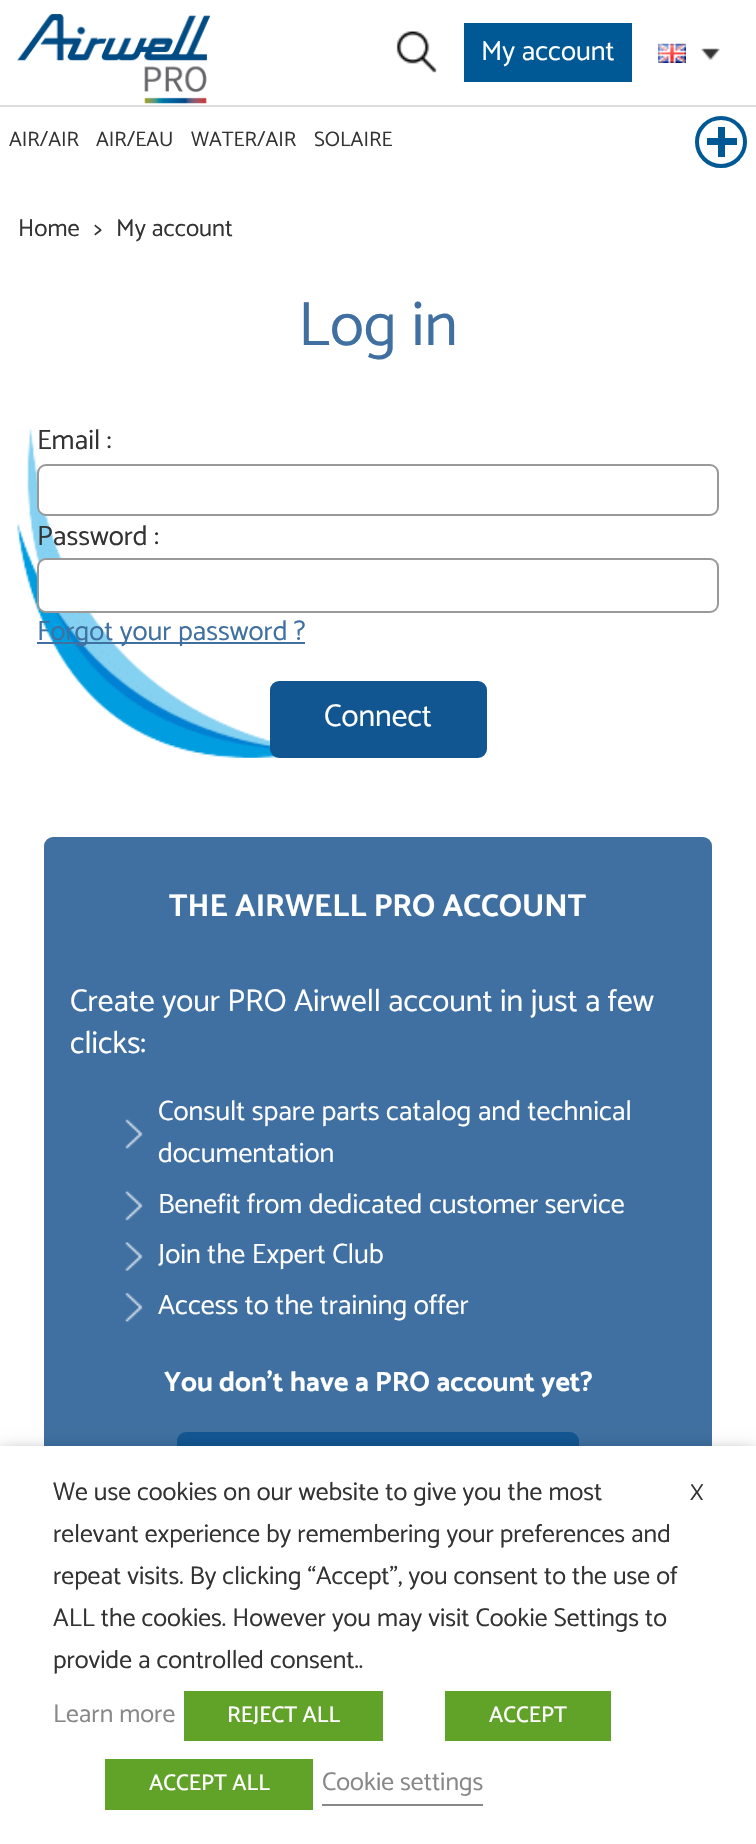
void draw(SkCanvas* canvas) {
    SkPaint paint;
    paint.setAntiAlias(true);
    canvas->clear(0xFFFFFFFF);
    canvas->drawImageRect(SkImages::DeferredFromEncodedData(SkData::MakeFromFileName("img1.png")), SkRect::MakeXYWH(17, 14, 193, 90), SkSamplingOptions());
    canvas->drawImageRect(SkImages::DeferredFromEncodedData(SkData::MakeFromFileName("img2.png")), SkRect::MakeXYWH(396, 31, 41, 42), SkSamplingOptions());
    paint.setColor(0xFF005994);
    canvas->drawRect(SkRect::MakeXYWH(464, 23, 168, 59), paint);
    SkFont font1(fontMgr->matchFamilyStyle("Catamaran", SkFontStyle::Normal()), 28);
    font1.setSubpixel(true);
    paint.setColor(0xFFFFFFFF);
    canvas->drawString("My account", 481, 60, font1, paint);
    canvas->drawImageRect(SkImages::DeferredFromEncodedData(SkData::MakeFromFileName("img3.png")), SkRect::MakeXYWH(658, 43, 28, 20), SkSamplingOptions());
    canvas->drawImageRect(SkImages::DeferredFromEncodedData(SkData::MakeFromFileName("img4.png")), SkRect::MakeXYWH(701, 48, 19, 12), SkSamplingOptions());
    paint.setColor(0xFFDDDDDD);
    canvas->drawRect(SkRect::MakeXYWH(0, 105, 756, 2), paint);
    SkFont font2(fontMgr->matchFamilyStyle("Catamaran", SkFontStyle::Normal()), 21);
    font2.setSubpixel(true);
    paint.setColor(0xFF333333);
    canvas->drawString("AIR/AIR", 9, 146, font2, paint);
    canvas->drawString("AIR/EAU", 96, 146, font2, paint);
    canvas->drawString("WATER/AIR", 191, 146, font2, paint);
    canvas->drawString("SOLAIRE", 314, 146, font2, paint);
    paint.setStyle(SkPaint::kStroke_Style);
    paint.setStrokeWidth(4);
    paint.setColor(0xFF005994);
    canvas->drawCircle(721, 142, 24, paint);
    paint.setStyle(SkPaint::kFill_Style);
    canvas->drawRect(SkRect::MakeXYWH(707, 138, 30, 7), paint);
    canvas->drawRect(SkRect::MakeXYWH(718, 127, 7, 30), paint);
    SkFont font3(fontMgr->matchFamilyStyle("Catamaran", SkFontStyle::Normal()), 24.5f);
    font3.setSubpixel(true);
    paint.setColor(0xFF333333);
    canvas->drawString("Home", 18, 236, font3, paint);
    canvas->drawString(">", 94, 236, font3, paint);
    canvas->drawString("My account", 116, 236, font3, paint);
    canvas->drawImageRect(SkImages::DeferredFromEncodedData(SkData::MakeFromFileName("img5.png")), SkRect::MakeXYWH(17, 427, 262, 331), SkSamplingOptions());
    SkFont font4(fontMgr->matchFamilyStyle("Catamaran", SkFontStyle::Normal()), 63);
    font4.setSubpixel(true);
    paint.setColor(0xFF3F70A1);
    canvas->drawString("Log in", 298, 345, font4, paint);
    paint.setColor(0xFF333333);
    canvas->drawString("Email :", 37, 449, font1, paint);
    paint.setColor(0xFFFFFFFF);
    canvas->drawRoundRect(SkRect::MakeXYWH(38, 465, 680, 50), 8, 8, paint);
    paint.setStyle(SkPaint::kStroke_Style);
    paint.setStrokeWidth(2);
    paint.setColor(0xFF999999);
    canvas->drawRoundRect(SkRect::MakeXYWH(38, 465, 680, 50), 8, 8, paint);
    paint.setStyle(SkPaint::kFill_Style);
    paint.setColor(0xFF333333);
    canvas->drawString("Password :", 37, 545, font1, paint);
    paint.setColor(0xFFFFFFFF);
    canvas->drawRoundRect(SkRect::MakeXYWH(38, 559, 680, 53), 8, 8, paint);
    paint.setStyle(SkPaint::kStroke_Style);
    paint.setColor(0xFF999999);
    canvas->drawRoundRect(SkRect::MakeXYWH(38, 559, 680, 53), 8, 8, paint);
    paint.setStyle(SkPaint::kFill_Style);
    paint.setColor(0xFF3F70A1);
    canvas->drawRect(SkRect::MakeXYWH(37, 642, 268, 2), paint);
    canvas->drawString("Forgot your password ?", 37, 640, font1, paint);
    paint.setColor(0xFF125691);
    canvas->drawRoundRect(SkRect::MakeXYWH(271, 682, 215, 75), 8, 8, paint);
    paint.setStyle(SkPaint::kStroke_Style);
    canvas->drawRoundRect(SkRect::MakeXYWH(271, 682, 215, 75), 8, 8, paint);
    SkFont font5(fontMgr->matchFamilyStyle("Catamaran", SkFontStyle::Normal()), 31.5f);
    font5.setSubpixel(true);
    paint.setStyle(SkPaint::kFill_Style);
    paint.setColor(0xFFFFFFFF);
    canvas->drawString("Connect", 324, 726, font5, paint);
    paint.setColor(0xFF3F70A1);
    canvas->drawRoundRect(SkRect::MakeXYWH(44, 837, 668, 724), 9, 9, paint);
    SkFont font6(fontMgr->matchFamilyStyle("Catamaran", SkFontStyle::Bold()), 31.5f);
    font6.setSubpixel(true);
    paint.setColor(0xFFFFFFFF);
    canvas->drawString("THE AIRWELL PRO ACCOUNT", 169, 916, font6, paint);
    canvas->drawString("Create your PRO Airwell account in just a few", 70, 1011, font5, paint);
    canvas->drawString("clicks:", 70, 1053, font5, paint);
    canvas->drawImageRect(SkImages::DeferredFromEncodedData(SkData::MakeFromFileName("img6.png")), SkRect::MakeXYWH(125, 1119, 18, 30), SkSamplingOptions());
    canvas->drawString("Consult spare parts catalog and technical", 158, 1120, font1, paint);
    canvas->drawString("documentation", 158, 1162, font1, paint);
    canvas->drawImageRect(SkImages::DeferredFromEncodedData(SkData::MakeFromFileName("img7.png")), SkRect::MakeXYWH(125, 1191, 18, 30), SkSamplingOptions());
    canvas->drawString("Benefit from dedicated customer service", 158, 1213, font1, paint);
    canvas->drawImageRect(SkImages::DeferredFromEncodedData(SkData::MakeFromFileName("img8.png")), SkRect::MakeXYWH(125, 1242, 18, 29), SkSamplingOptions());
    canvas->drawString("Join the Expert Club", 158, 1263, font1, paint);
    canvas->drawImageRect(SkImages::DeferredFromEncodedData(SkData::MakeFromFileName("img9.png")), SkRect::MakeXYWH(125, 1292, 18, 30), SkSamplingOptions());
    canvas->drawString("Access to the training offer", 158, 1314, font1, paint);
    SkFont font7(fontMgr->matchFamilyStyle("Catamaran", SkFontStyle::Bold()), 28);
    font7.setSubpixel(true);
    canvas->drawString("You don’t have a PRO account yet?", 164, 1391, font7, paint);
    paint.setColor(0xFF125691);
    canvas->drawRoundRect(SkRect::MakeXYWH(178, 1433, 400, 75), 8, 8, paint);
    paint.setStyle(SkPaint::kStroke_Style);
    canvas->drawRoundRect(SkRect::MakeXYWH(178, 1433, 400, 75), 8, 8, paint);
    paint.setStyle(SkPaint::kFill_Style);
    paint.setColor(0x80000000);
    paint.setMaskFilter(SkMaskFilter::MakeBlur(kNormal_SkBlurStyle, 9));
    canvas->drawRect(SkRect::MakeXYWH(0, 1454, 756, 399), paint);
    paint.setMaskFilter(nullptr);
    paint.setColor(0xFFFFFFFF);
    canvas->drawRect(SkRect::MakeXYWH(0, 1446, 756, 398), paint);
    SkFont font8(fontMgr->matchFamilyStyle("Catamaran", SkFontStyle::Normal()), 25.7f);
    font8.setSubpixel(true);
    paint.setColor(0xFF333333);
    canvas->drawString("We use cookies on our website to give you the most", 53, 1500, font8, paint);
    canvas->drawString("relevant experience by remembering your preferences and", 53, 1542, font8, paint);
    canvas->drawString("repeat visits. By clicking “Accept”, you consent to the use of", 53, 1584, font8, paint);
    canvas->drawString("ALL the cookies. However you may visit Cookie Settings to", 53, 1626, font8, paint);
    canvas->drawString("provide a controlled consent..", 53, 1668, font8, paint);
    paint.setColor(0xFF898888);
    canvas->drawString("Learn more", 53, 1722, font8, paint);
    paint.setColor(0xFF61A229);
    canvas->drawRect(SkRect::MakeXYWH(184, 1691, 199, 50), paint);
    SkFont font9(fontMgr->matchFamilyStyle("Catamaran", SkFontStyle(500, SkFontStyle::kNormal_Width, SkFontStyle::kUpright_Slant)), 22.75f);
    font9.setSubpixel(true);
    paint.setColor(0xFFFFFFFF);
    canvas->drawString("REJECT ALL", 227, 1722, font9, paint);
    paint.setColor(0xFF61A229);
    canvas->drawRect(SkRect::MakeXYWH(445, 1691, 166, 50), paint);
    paint.setColor(0xFFFFFFFF);
    canvas->drawString("ACCEPT", 489, 1722, font9, paint);
    paint.setColor(0xFF61A229);
    canvas->drawRect(SkRect::MakeXYWH(105, 1759, 208, 51), paint);
    paint.setColor(0xFFFFFFFF);
    canvas->drawString("ACCEPT ALL", 149, 1790, font9, paint);
    paint.setColor(0xFF898888);
    canvas->drawString("Cookie settings", 322, 1790, font8, paint);
    canvas->drawRect(SkRect::MakeXYWH(322, 1804, 161, 2), paint);
    SkFont font10(fontMgr->matchFamilyStyle("Catamaran", SkFontStyle::Normal()), 23);
    font10.setSubpixel(true);
    paint.setColor(0xFF333333);
    canvas->drawString("X", 690, 1500, font10, paint);
}
